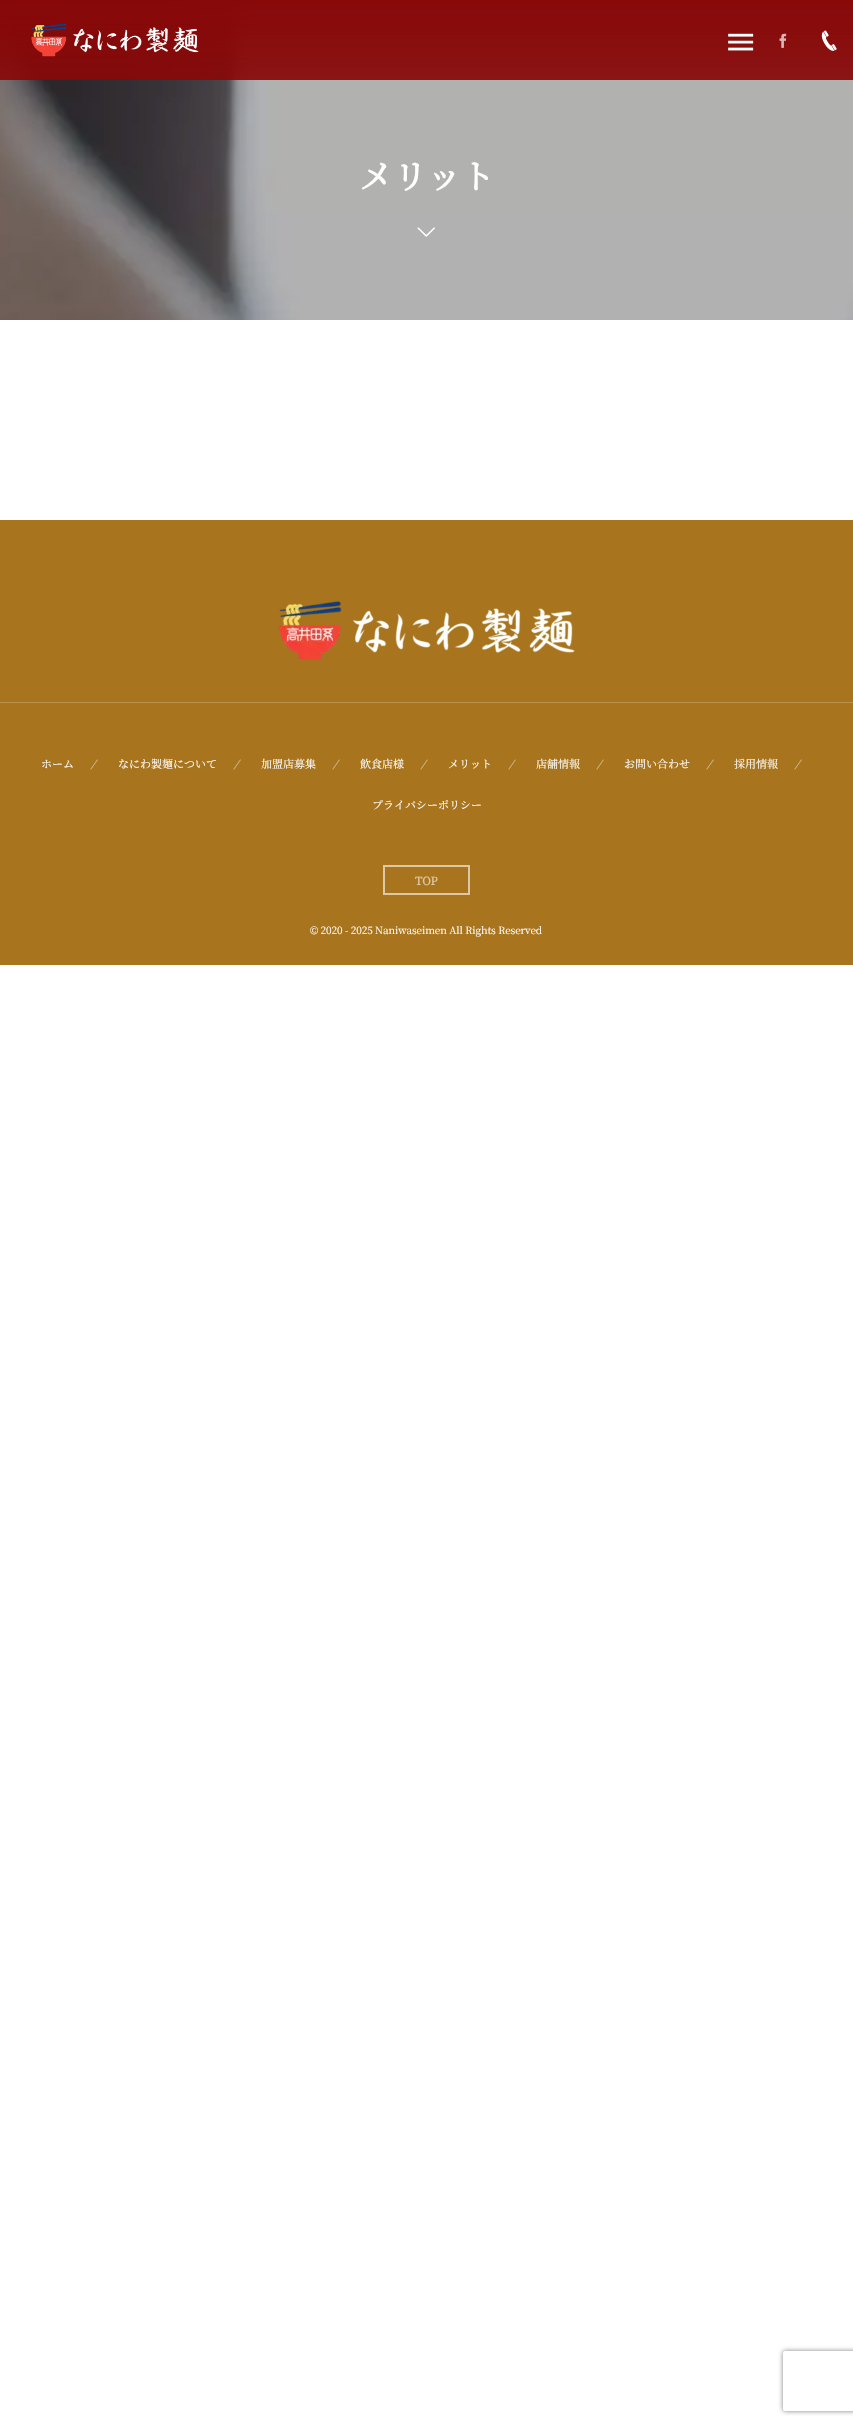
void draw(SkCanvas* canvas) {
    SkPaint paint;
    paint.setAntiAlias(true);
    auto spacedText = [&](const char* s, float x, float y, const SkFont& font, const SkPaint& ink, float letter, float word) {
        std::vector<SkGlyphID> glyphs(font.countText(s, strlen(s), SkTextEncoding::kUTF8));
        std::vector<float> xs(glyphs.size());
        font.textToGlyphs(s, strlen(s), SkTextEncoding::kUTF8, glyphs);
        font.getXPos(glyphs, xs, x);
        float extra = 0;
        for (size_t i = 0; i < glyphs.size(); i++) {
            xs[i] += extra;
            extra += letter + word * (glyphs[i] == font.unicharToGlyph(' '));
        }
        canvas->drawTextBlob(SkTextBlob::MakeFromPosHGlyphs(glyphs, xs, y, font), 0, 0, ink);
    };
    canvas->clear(0xFFFFFFFF);
    canvas->drawImageRect(SkImages::DeferredFromEncodedData(SkData::MakeFromFileName("img5.png")), SkRect::MakeXYWH(0, 0, 853, 320), SkSamplingOptions());
    paint.setColor(0xEB880808);
    canvas->drawRect(SkRect::MakeXYWH(0, 0, 853, 80), paint);
    {
        const SkColor colors[] = {0xEB880808, 0xB8880808, 0x1A880808};
        const float stops[] = {0, 0.38f, 1};
        const SkPoint ends[] = {{427, 0}, {427, 80}};
        paint.setShader(SkGradientShader::MakeLinear(ends, colors, stops, 3, SkTileMode::kClamp));
        paint.setAlpha(255);
    }
    canvas->drawRect(SkRect::MakeXYWH(0, 0, 853, 75), paint);
    canvas->drawImageRect(SkImages::DeferredFromEncodedData(SkData::MakeFromFileName("img1.png")), SkRect::MakeXYWH(31, 23, 168, 34), SkSamplingOptions());
    canvas->drawImageRect(SkImages::DeferredFromEncodedData(SkData::MakeFromFileName("img2.png")), SkRect::MakeXYWH(728, 33, 26, 18), SkSamplingOptions());
    canvas->drawImageRect(SkImages::DeferredFromEncodedData(SkData::MakeFromFileName("img3.png")), SkRect::MakeXYWH(779, 33, 8, 15), SkSamplingOptions());
    canvas->drawImageRect(SkImages::DeferredFromEncodedData(SkData::MakeFromFileName("img4.png")), SkRect::MakeXYWH(821, 30, 16, 21), SkSamplingOptions());
    SkFont font1(fontMgr->matchFamilyStyle("Noto Serif JP", SkFontStyle::Bold()), 34);
    font1.setSubpixel(true);
    paint.setShader(nullptr);
    paint.setColor(0xFFFFFFFF);
    spacedText("メリット", 359, 189, font1, paint, -0.1f, 0);
    canvas->drawImageRect(SkImages::DeferredFromEncodedData(SkData::MakeFromFileName("img6.png")), SkRect::MakeXYWH(417, 227, 18, 10), SkSamplingOptions());
    paint.setColor(0xFFA8751E);
    canvas->drawRect(SkRect::MakeXYWH(0, 520, 853, 445), paint);
    canvas->drawImageRect(SkImages::DeferredFromEncodedData(SkData::MakeFromFileName("img7.png")), SkRect::MakeXYWH(279, 601, 296, 59), SkSamplingOptions());
    paint.setColor(0xFFB9914B);
    canvas->drawRect(SkRect::MakeXYWH(0, 702, 853, 1), paint);
    SkFont font2(fontMgr->matchFamilyStyle("Noto Serif JP", SkFontStyle(200, SkFontStyle::kNormal_Width, SkFontStyle::kUpright_Slant)), 11);
    font2.setSubpixel(true);
    paint.setColor(0xFFFFFFFF);
    canvas->drawString("ホーム", 41, 768, font2, paint);
    paint.setColor(0xFFDCC8A5);
    canvas->save();
    canvas->rotate(35, 91, 766);
    canvas->drawString("|", 91, 766, font2, paint);
    canvas->restore();
    paint.setColor(0xFFFFFFFF);
    canvas->drawString("なにわ製麺について", 118, 768, font2, paint);
    paint.setColor(0xFFDCC8A5);
    canvas->save();
    canvas->rotate(35, 234, 766);
    canvas->drawString("|", 234, 766, font2, paint);
    canvas->restore();
    paint.setColor(0xFFFFFFFF);
    canvas->drawString("加盟店募集", 261, 768, font2, paint);
    paint.setColor(0xFFDCC8A5);
    canvas->save();
    canvas->rotate(35, 333, 766);
    canvas->drawString("|", 333, 766, font2, paint);
    canvas->restore();
    paint.setColor(0xFFFFFFFF);
    canvas->drawString("飲食店様", 360, 768, font2, paint);
    paint.setColor(0xFFDCC8A5);
    canvas->save();
    canvas->rotate(35, 421, 766);
    canvas->drawString("|", 421, 766, font2, paint);
    canvas->restore();
    paint.setColor(0xFFFFFFFF);
    canvas->drawString("メリット", 448, 768, font2, paint);
    paint.setColor(0xFFDCC8A5);
    canvas->save();
    canvas->rotate(35, 509, 766);
    canvas->drawString("|", 509, 766, font2, paint);
    canvas->restore();
    paint.setColor(0xFFFFFFFF);
    canvas->drawString("店舗情報", 536, 768, font2, paint);
    paint.setColor(0xFFDCC8A5);
    canvas->save();
    canvas->rotate(35, 597, 766);
    canvas->drawString("|", 597, 766, font2, paint);
    canvas->restore();
    paint.setColor(0xFFFFFFFF);
    canvas->drawString("お問い合わせ", 624, 768, font2, paint);
    paint.setColor(0xFFDCC8A5);
    canvas->save();
    canvas->rotate(35, 707, 766);
    canvas->drawString("|", 707, 766, font2, paint);
    canvas->restore();
    paint.setColor(0xFFFFFFFF);
    canvas->drawString("採用情報", 734, 768, font2, paint);
    paint.setColor(0xFFDCC8A5);
    canvas->save();
    canvas->rotate(35, 795, 766);
    canvas->drawString("|", 795, 766, font2, paint);
    canvas->restore();
    paint.setColor(0xFFFFFFFF);
    canvas->drawString("プライバシーポリシー", 372, 809, font2, paint);
    paint.setStyle(SkPaint::kStroke_Style);
    paint.setStrokeWidth(2);
    paint.setColor(0xFFDCC8A5);
    canvas->drawRect(SkRect::MakeXYWH(384, 866, 85, 28), paint);
    SkFont font3(fontMgr->matchFamilyStyle("Noto Serif JP", SkFontStyle::Bold()), 11);
    font3.setSubpixel(true);
    paint.setStyle(SkPaint::kFill_Style);
    spacedText("TOP", 415, 885, font3, paint, -0.1f, 0);
    SkFont font4(fontMgr->matchFamilyStyle("Noto Serif JP", SkFontStyle(200, SkFontStyle::kNormal_Width, SkFontStyle::kUpright_Slant)), 10);
    font4.setSubpixel(true);
    paint.setColor(0xFFFFFFFF);
    spacedText("© 2020 - 2025 Naniwaseimen All Rights Reserved", 310, 934, font4, paint, -0.1f, 0);
    canvas->save();
    canvas->clipPath(SkPathBuilder(SkPathFillType::kEvenOdd).moveTo(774, 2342).lineTo(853, 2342).lineTo(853, 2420).lineTo(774, 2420).close().moveTo(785, 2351).lineTo(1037, 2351).cubicTo(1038, 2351, 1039, 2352, 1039, 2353).lineTo(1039, 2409).cubicTo(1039, 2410, 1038, 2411, 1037, 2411).lineTo(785, 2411).cubicTo(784, 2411, 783, 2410, 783, 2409).lineTo(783, 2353).cubicTo(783, 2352, 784, 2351, 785, 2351).close().detach(), true);
    paint.setColor(0xFF808080);
    paint.setMaskFilter(SkMaskFilter::MakeBlur(kNormal_SkBlurStyle, 2.5f));
    canvas->drawRoundRect(SkRect::MakeXYWH(783, 2351, 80, 60), 2, 2, paint);
    paint.setMaskFilter(nullptr);
    canvas->restore();
}
